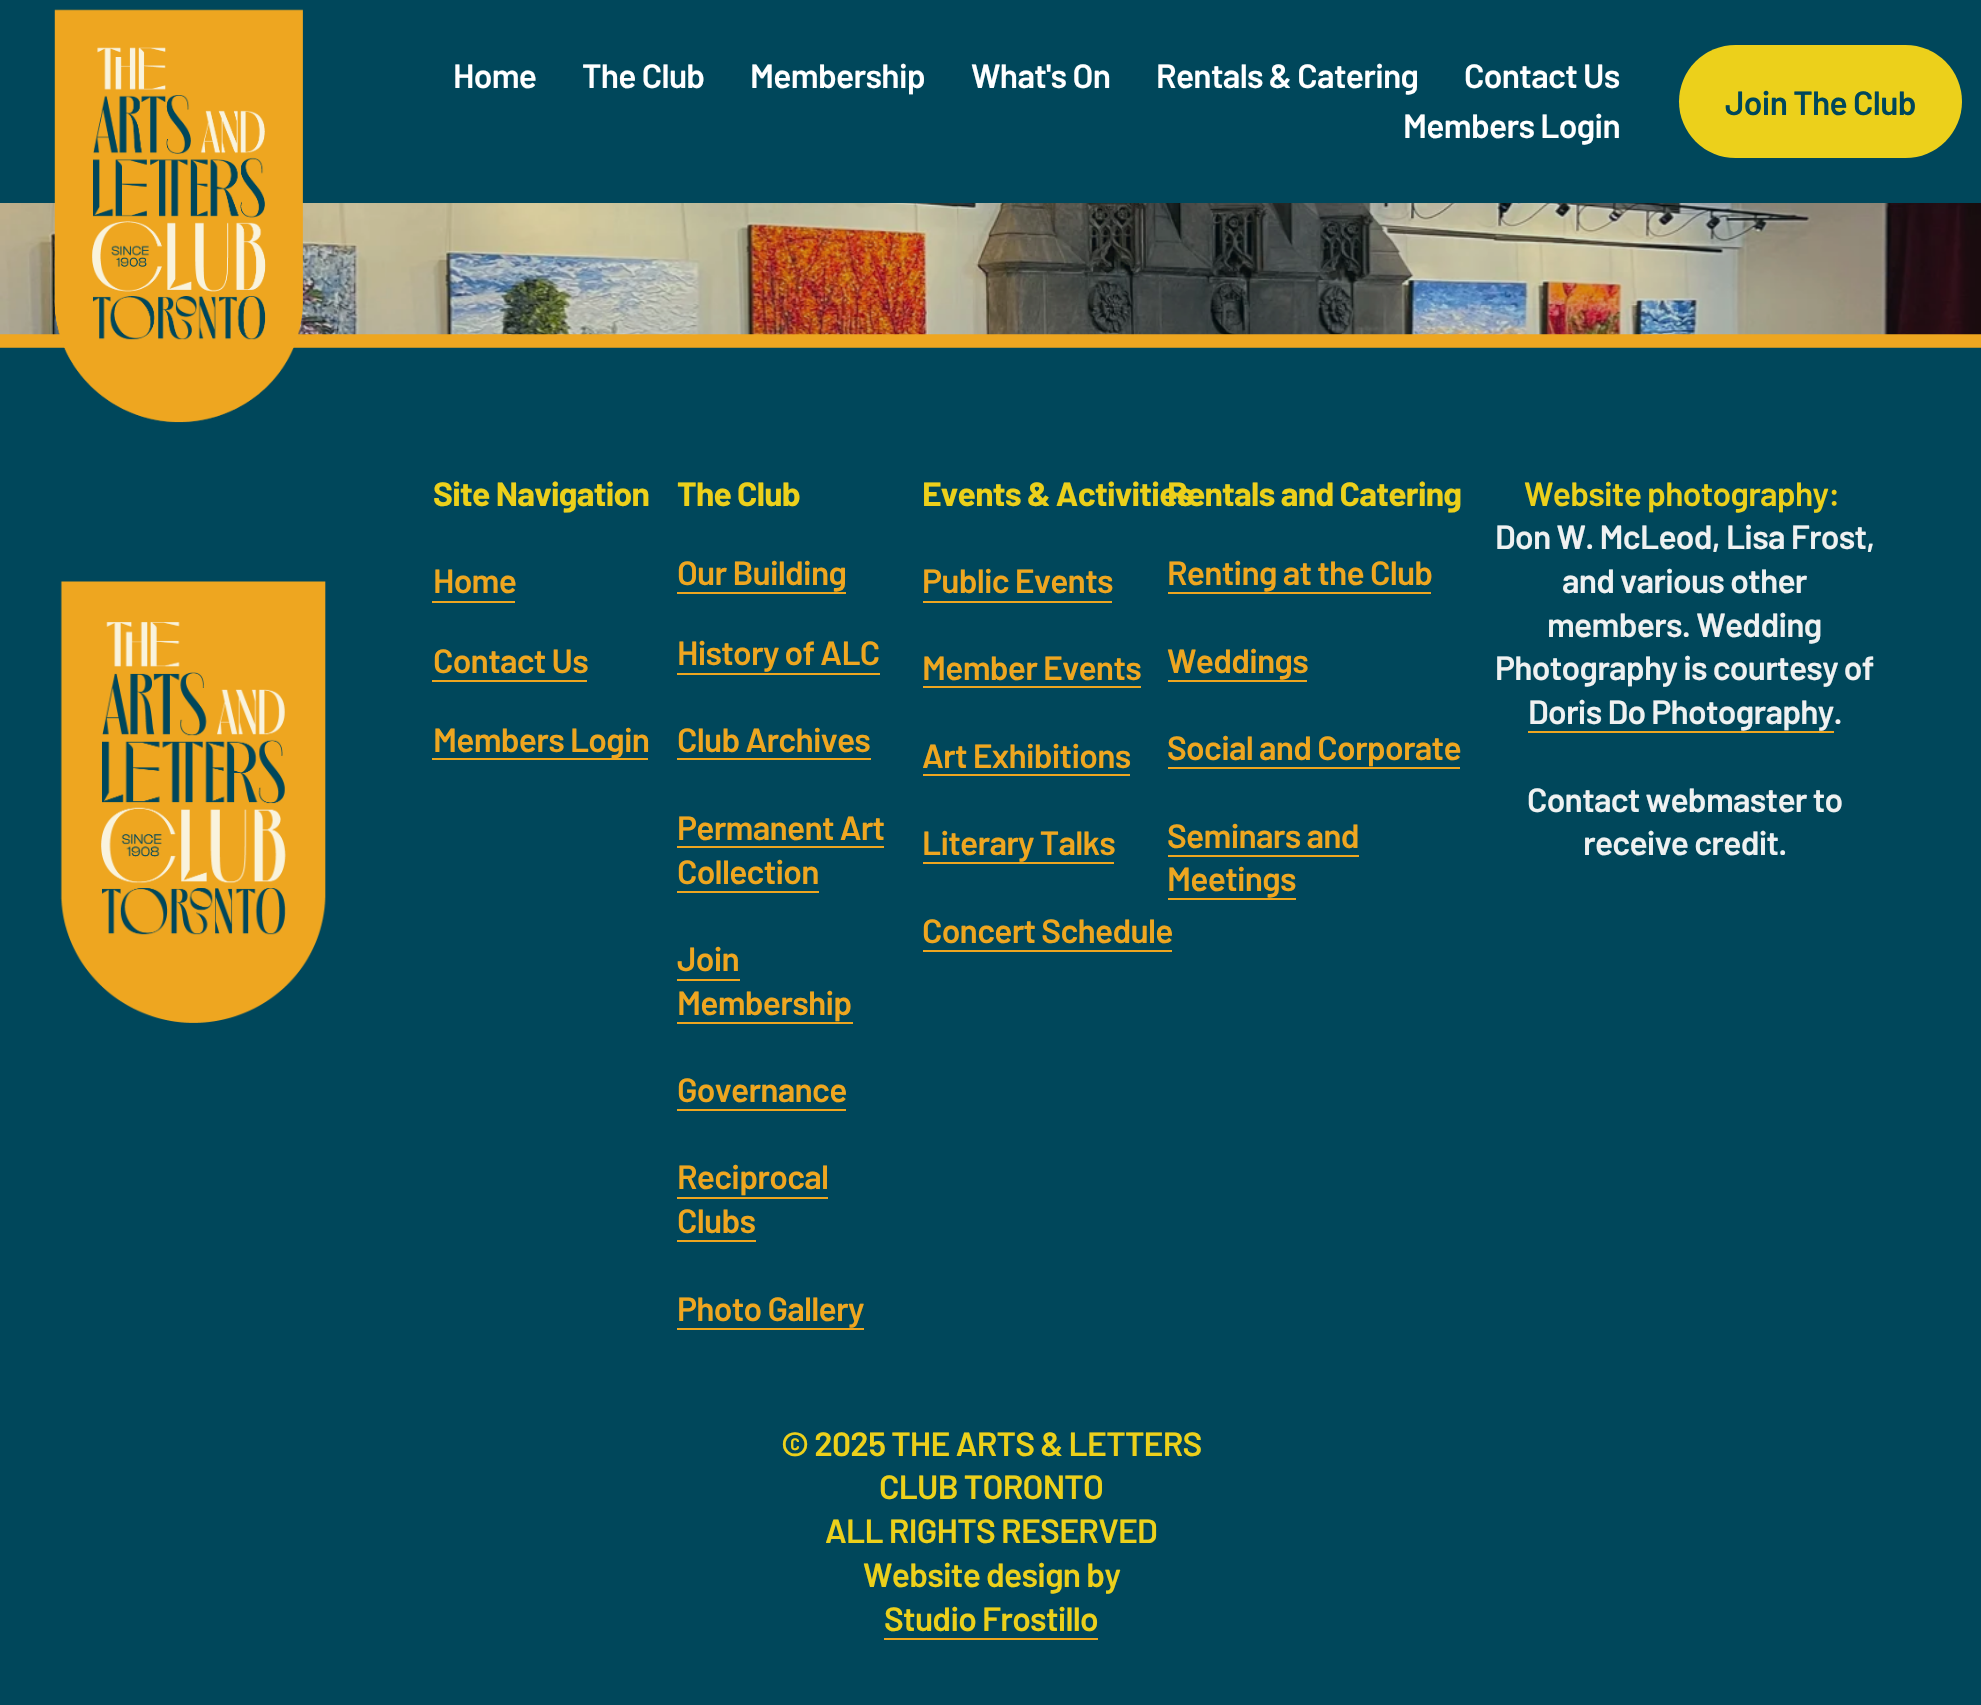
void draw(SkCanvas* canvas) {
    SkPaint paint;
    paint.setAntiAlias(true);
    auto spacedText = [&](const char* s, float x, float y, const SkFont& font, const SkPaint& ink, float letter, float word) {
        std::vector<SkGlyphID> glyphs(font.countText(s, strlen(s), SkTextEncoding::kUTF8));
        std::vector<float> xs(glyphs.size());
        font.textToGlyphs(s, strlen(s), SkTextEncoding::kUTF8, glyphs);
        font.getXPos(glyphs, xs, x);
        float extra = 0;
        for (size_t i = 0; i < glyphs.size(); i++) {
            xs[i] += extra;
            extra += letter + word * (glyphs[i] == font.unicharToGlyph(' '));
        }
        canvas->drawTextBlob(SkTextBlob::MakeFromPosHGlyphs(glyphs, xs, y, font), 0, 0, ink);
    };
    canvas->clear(0xFF00475B);
    canvas->drawImageRect(SkImages::DeferredFromEncodedData(SkData::MakeFromFileName("img2.png")), SkRect::MakeXYWH(0, 203, 1981, 132), SkSamplingOptions());
    paint.setStyle(SkPaint::kStroke_Style);
    paint.setStrokeWidth(13.5f);
    paint.setStrokeCap(SkPaint::kSquare_Cap);
    paint.setColor(0xFFEEA620);
    canvas->drawPath(SkPathBuilder().moveTo(-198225, -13).lineTo(-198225, 694.5f).moveTo(0, 341).lineTo(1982, 341).detach(), paint);
    canvas->drawImageRect(SkImages::DeferredFromEncodedData(SkData::MakeFromFileName("img1.png")), SkRect::MakeXYWH(54, 9, 249, 414), SkSamplingOptions());
    SkFont font1(fontMgr->matchFamilyStyle("Barlow", SkFontStyle(600, SkFontStyle::kNormal_Width, SkFontStyle::kUpright_Slant)), 33.6f);
    font1.setSubpixel(true);
    paint.setStyle(SkPaint::kFill_Style);
    paint.setColor(0xFFFFFFFF);
    spacedText("Home", 453, 88, font1, paint, -0.7f, 0);
    spacedText("The Club", 582, 88, font1, paint, -0.7f, 0);
    spacedText("Membership", 750, 88, font1, paint, -0.7f, 0);
    spacedText("What's On", 971, 88, font1, paint, -0.7f, 0);
    spacedText("Rentals & Catering", 1156, 88, font1, paint, -0.7f, 0);
    spacedText("Contact Us", 1464, 88, font1, paint, -0.7f, 0);
    spacedText("Members Login", 1403, 138, font1, paint, -0.7f, 0);
    paint.setColor(0xFFECD01B);
    canvas->drawRoundRect(SkRect::MakeXYWH(1679, 45, 283, 113), 56.5f, 56.5f, paint);
    paint.setColor(0xFF00475B);
    spacedText("Join The Club", 1725, 115, font1, paint, -0.7f, 0);
    canvas->drawImageRect(SkImages::DeferredFromEncodedData(SkData::MakeFromFileName("img3.png")), SkRect::MakeXYWH(60, 581, 266, 442), SkSamplingOptions());
    SkFont font2(fontMgr->matchFamilyStyle("Barlow", SkFontStyle::Bold()), 33.6f);
    font2.setSubpixel(true);
    paint.setColor(0xFFECD01B);
    spacedText("Site Navigation", 433, 506, font2, paint, -0.75f, 0);
    paint.setColor(0xFFEEA620);
    spacedText("Home", 433, 593, font1, paint, -0.75f, 0);
    canvas->drawRect(SkRect::MakeXYWH(432, 601, 83, 2), paint);
    spacedText("Contact Us", 433, 673, font1, paint, -0.75f, 0);
    canvas->drawRect(SkRect::MakeXYWH(432, 680, 155, 2), paint);
    canvas->drawRect(SkRect::MakeXYWH(432, 758, 216, 2), paint);
    spacedText("Members Login", 433, 752, font1, paint, -0.75f, 0);
    paint.setColor(0xFFECD01B);
    spacedText("The Club", 677, 506, font2, paint, -0.75f, 0);
    paint.setColor(0xFFEEA620);
    spacedText("Our Building", 677, 585, font1, paint, -0.75f, 0);
    canvas->drawRect(SkRect::MakeXYWH(677, 592, 169, 2), paint);
    spacedText("History of ALC", 677, 665, font1, paint, -0.75f, 0);
    canvas->drawRect(SkRect::MakeXYWH(677, 673, 203, 2), paint);
    spacedText("Club Archives", 677, 752, font1, paint, -0.75f, 0);
    canvas->drawRect(SkRect::MakeXYWH(677, 758, 194, 2), paint);
    spacedText("Permanent Art", 677, 840, font1, paint, -0.75f, 0);
    canvas->drawRect(SkRect::MakeXYWH(677, 846, 207, 2), paint);
    spacedText("Collection", 677, 884, font1, paint, -0.75f, 0);
    canvas->drawRect(SkRect::MakeXYWH(677, 891, 142, 2), paint);
    spacedText("Join", 677, 971, font1, paint, -0.75f, 0);
    canvas->drawRect(SkRect::MakeXYWH(677, 979, 63, 2), paint);
    spacedText("Membership", 677, 1015, font1, paint, -0.75f, 0);
    canvas->drawRect(SkRect::MakeXYWH(677, 1022, 176, 2), paint);
    spacedText("Governance", 677, 1102, font1, paint, -0.75f, 0);
    canvas->drawRect(SkRect::MakeXYWH(677, 1109, 169, 2), paint);
    spacedText("Reciprocal", 677, 1189, font1, paint, -0.75f, 0);
    canvas->drawRect(SkRect::MakeXYWH(677, 1197, 151, 2), paint);
    spacedText("Clubs", 677, 1233, font1, paint, -0.75f, 0);
    canvas->drawRect(SkRect::MakeXYWH(677, 1240, 79, 2), paint);
    spacedText("Photo Gallery", 677, 1321, font1, paint, -0.75f, 0);
    canvas->drawRect(SkRect::MakeXYWH(677, 1328, 187, 2), paint);
    paint.setColor(0xFFECD01B);
    spacedText("Rentals and Catering", 1167, 506, font2, paint, -0.75f, 0);
    spacedText("Events & Activities", 922, 506, font2, paint, -0.75f, 0);
    paint.setColor(0xFFEEA620);
    spacedText("Public Events", 922, 593, font1, paint, -0.75f, 0);
    canvas->drawRect(SkRect::MakeXYWH(923, 601, 189, 2), paint);
    spacedText("Member Events", 922, 680, font1, paint, -0.75f, 0);
    canvas->drawRect(SkRect::MakeXYWH(923, 686, 218, 2), paint);
    spacedText("Art Exhibitions", 922, 768, font1, paint, -0.75f, 0);
    canvas->drawRect(SkRect::MakeXYWH(923, 774, 207, 2), paint);
    spacedText("Literary Talks", 922, 855, font1, paint, -0.75f, 0);
    canvas->drawRect(SkRect::MakeXYWH(923, 862, 191, 2), paint);
    spacedText("Concert Schedule", 922, 943, font1, paint, -0.75f, 0);
    canvas->drawRect(SkRect::MakeXYWH(923, 950, 249, 2), paint);
    spacedText("Renting at the Club", 1167, 585, font1, paint, -0.75f, 0);
    canvas->drawRect(SkRect::MakeXYWH(1168, 592, 263, 2), paint);
    spacedText("Weddings", 1167, 673, font1, paint, -0.75f, 0);
    canvas->drawRect(SkRect::MakeXYWH(1168, 680, 139, 2), paint);
    spacedText("Social and Corporate", 1167, 760, font1, paint, -0.75f, 0);
    canvas->drawRect(SkRect::MakeXYWH(1168, 767, 292, 2), paint);
    spacedText("Seminars and", 1167, 848, font1, paint, -0.75f, 0);
    canvas->drawRect(SkRect::MakeXYWH(1168, 855, 191, 2), paint);
    spacedText("Meetings", 1167, 891, font1, paint, -0.75f, 0);
    canvas->drawRect(SkRect::MakeXYWH(1168, 898, 128, 2), paint);
    paint.setColor(0xFFECD01B);
    spacedText("Website photography:", 1524, 506, font1, paint, -0.75f, 0);
    paint.setColor(0xFFEFF1F1);
    spacedText("Don W. McLeod, Lisa Frost,", 1495, 549, font1, paint, -0.75f, 0);
    spacedText("and various other", 1562, 593, font1, paint, -0.75f, 0);
    spacedText("members. Wedding", 1547, 637, font1, paint, -0.75f, 0);
    spacedText("Photography is courtesy of", 1495, 680, font1, paint, -0.75f, 0);
    spacedText("Doris Do Photography.", 1528, 724, font1, paint, -0.75f, 0);
    paint.setColor(0xFFEEA620);
    canvas->drawRect(SkRect::MakeXYWH(1528, 731, 306, 2), paint);
    paint.setColor(0xFFEFF1F1);
    spacedText("Contact webmaster to", 1527, 812, font1, paint, -0.75f, 0);
    spacedText("receive credit.", 1583, 855, font1, paint, -0.75f, 0);
    paint.setColor(0xFFECD01B);
    spacedText("© 2025 THE ARTS & LETTERS", 781, 1456, font1, paint, -0.75f, 0);
    spacedText("CLUB TORONTO", 879, 1499, font1, paint, -0.75f, 0);
    spacedText("ALL RIGHTS RESERVED", 825, 1543, font1, paint, -0.75f, 0);
    spacedText("Website design by", 863, 1587, font1, paint, -0.75f, 0);
    spacedText("Studio Frostillo", 884, 1631, font1, paint, -0.75f, 0);
    paint.setColor(0xFFEEA620);
    canvas->drawRect(SkRect::MakeXYWH(884, 1638, 214, 2), paint);
}
